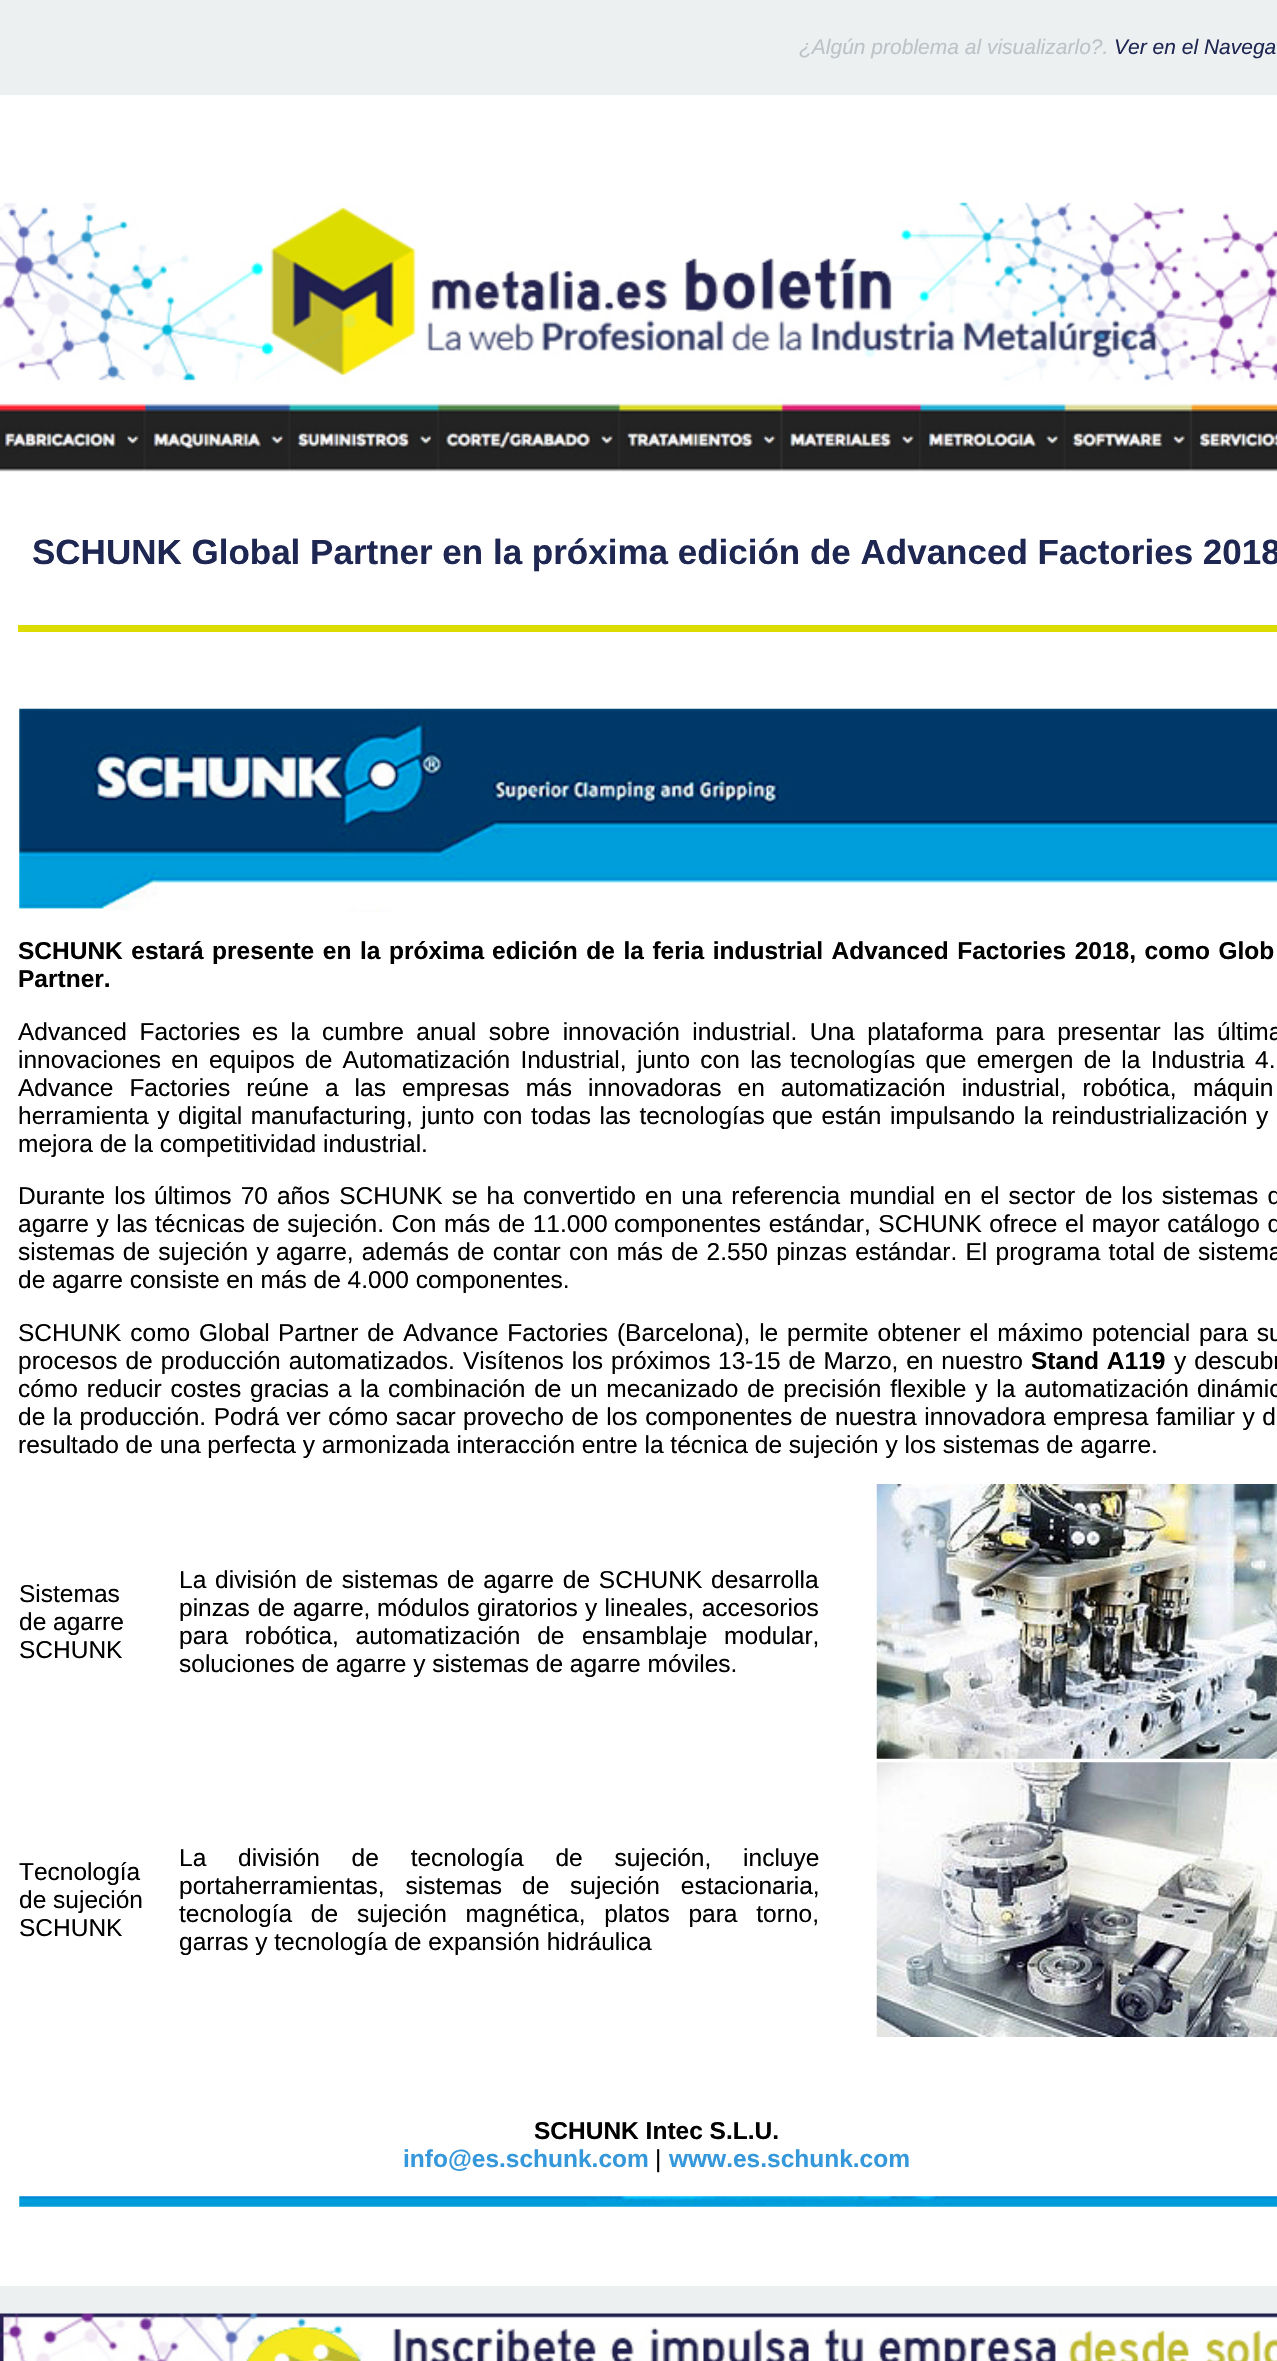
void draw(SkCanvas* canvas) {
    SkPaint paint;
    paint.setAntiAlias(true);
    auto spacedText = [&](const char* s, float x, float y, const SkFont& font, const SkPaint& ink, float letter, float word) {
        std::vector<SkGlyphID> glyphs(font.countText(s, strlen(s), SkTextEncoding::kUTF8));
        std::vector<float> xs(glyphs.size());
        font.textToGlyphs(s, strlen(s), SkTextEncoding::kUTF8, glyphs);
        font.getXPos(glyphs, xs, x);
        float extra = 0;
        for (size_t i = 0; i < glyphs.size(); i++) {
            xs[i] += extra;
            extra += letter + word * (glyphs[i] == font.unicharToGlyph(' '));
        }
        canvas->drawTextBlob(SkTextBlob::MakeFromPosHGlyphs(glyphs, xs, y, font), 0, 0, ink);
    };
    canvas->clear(0xFFECF0F1);
    SkFont font1(fontMgr->matchFamilyStyle("Liberation Sans", SkFontStyle::Italic()), 21);
    font1.setSubpixel(true);
    paint.setColor(0xFFBDC3C7);
    canvas->drawString("¿Algún problema al visualizarlo?.", 799, 54, font1, paint);
    paint.setColor(0xFF1E2652);
    canvas->drawString("Ver en el Navega", 1114, 54, font1, paint);
    paint.setColor(0xFFFFFFFF);
    canvas->drawRect(SkRect::MakeXYWH(0, 95, 1277, 2191), paint);
    canvas->drawImageRect(SkImages::DeferredFromEncodedData(SkData::MakeFromFileName("img1.png")), SkRect::MakeXYWH(0, 202, 1277, 270), SkSamplingOptions());
    paint.setColor(0xFFDCDC00);
    canvas->drawRect(SkRect::MakeXYWH(18, 625, 1259, 7), paint);
    SkFont font2(fontMgr->matchFamilyStyle("Liberation Sans", SkFontStyle::Bold()), 35);
    font2.setSubpixel(true);
    paint.setColor(0xFF1E2652);
    canvas->drawString("SCHUNK Global Partner en la próxima edición de Advanced Factories 2018", 32, 564, font2, paint);
    canvas->drawImageRect(SkImages::DeferredFromEncodedData(SkData::MakeFromFileName("img2.png")), SkRect::MakeXYWH(19, 708, 1258, 204), SkSamplingOptions());
    SkFont font3(fontMgr->matchFamilyStyle("Liberation Sans", SkFontStyle::Bold()), 24.5f);
    font3.setSubpixel(true);
    paint.setColor(0xFF000000);
    spacedText("SCHUNK estará presente en la próxima", 18, 959, font3, paint, 0, 1.75f);
    spacedText("edición de la feria industrial Advanced Factories 2018, como Glob", 492, 959, font3, paint, 0, 1.75f);
    canvas->drawString("Partner.", 18, 987, font3, paint);
    SkFont font4(fontMgr->matchFamilyStyle("Liberation Sans", SkFontStyle::Normal()), 24.5f);
    font4.setSubpixel(true);
    spacedText("Advanced Factories", 18, 1040, font4, paint, 0, 5.75f);
    spacedText("es la cumbre anual sobre innovación industrial. Una plataforma para presentar las", 252, 1040, font4, paint, 0, 5.75f);
    canvas->drawString("última", 1217, 1040, font4, paint);
    spacedText("innovaciones en equipos de Automatización Industrial, junto con las", 18, 1068, font4, paint, 0, 3.5f);
    spacedText("tecnologías que emergen de la Industria 4.", 790, 1068, font4, paint, 0, 3.5f);
    spacedText("Advance Factories reúne a las", 18, 1096, font4, paint, 0, 9.25f);
    spacedText("empresas más innovadoras en automatización industrial, robótica,", 402, 1096, font4, paint, 0, 9.25f);
    canvas->drawString("máquin", 1193, 1096, font4, paint);
    spacedText("herramienta y digital manufacturing, junto con todas las tecnologías", 18, 1124, font4, paint, 0, 1.75f);
    spacedText("que están impulsando la reindustrialización y", 772, 1124, font4, paint, 0, 1.75f);
    canvas->drawString("mejora de la competitividad industrial.", 18, 1152, font4, paint);
    spacedText("Durante los", 18, 1204, font4, paint, 0, 2.25f);
    spacedText("últimos 70 años SCHUNK se ha convertido en una referencia mundial en el sector", 154, 1204, font4, paint, 0, 2.25f);
    spacedText("de los sistemas d", 1085, 1204, font4, paint, 0, 2.25f);
    spacedText("agarre y las técnicas de sujeción. Con más de 11.000", 18, 1232, font4, paint, 0, 0.75f);
    spacedText("componentes estándar, SCHUNK ofrece el mayor catálogo d", 614, 1232, font4, paint, 0, 0.75f);
    spacedText("sistemas de sujeción y", 18, 1260, font4, paint, 0, 1.4f);
    spacedText("agarre, además de contar con más de 2.550 pinzas estándar. El programa total de", 276, 1260, font4, paint, 0, 1.4f);
    canvas->drawString("sistema", 1198, 1260, font4, paint);
    canvas->drawString("de agarre consiste en más de 4.000 componentes.", 18, 1288, font4, paint);
    spacedText("SCHUNK como Global", 18, 1341, font4, paint, 0, 2);
    spacedText("Partner de Advance Factories (Barcelona), le permite obtener el máximo", 278, 1341, font4, paint, 0, 2);
    spacedText("potencial para su", 1092, 1341, font4, paint, 0, 2);
    spacedText("procesos de producción automatizados. Visítenos los próximos", 18, 1369, font4, paint, 0, 1.25f);
    spacedText("13-15 de Marzo, en nuestro", 718, 1369, font4, paint, 0, 1);
    spacedText("Stand A119", 1031, 1369, font3, paint, 0, 1);
    spacedText("y descubr", 1174, 1369, font4, paint, 0, 1.25f);
    spacedText("cómo reducir costes gracias a", 18, 1397, font4, paint, 0, 2);
    spacedText("la combinación de un mecanizado de precisión flexible y la automatización", 360, 1397, font4, paint, 0, 2);
    canvas->drawString("dinámic", 1197, 1397, font4, paint);
    spacedText("de la producción. Podrá ver cómo sacar provecho de los componentes de", 18, 1425, font4, paint, 0, 0.75f);
    spacedText("nuestra innovadora empresa familiar y d", 835, 1425, font4, paint, 0, 0.75f);
    canvas->drawString("resultado de una perfecta y armonizada interacción entre la técnica de sujeción y los sistemas de agarre.", 18, 1453, font4, paint);
    canvas->drawString("Sistemas", 19, 1602, font4, paint);
    canvas->drawString("de agarre", 19, 1630, font4, paint);
    canvas->drawString("SCHUNK", 19, 1658, font4, paint);
    spacedText("La división de sistemas de agarre de SCHUNK desarrolla", 179, 1588, font4, paint, 0, 2);
    spacedText("pinzas de agarre,", 179, 1616, font4, paint, 0, 1);
    spacedText("módulos giratorios y lineales, accesorios", 377, 1616, font4, paint, 0, 0.5f);
    spacedText("para robótica, automatización de", 179, 1644, font4, paint, 0, 10);
    spacedText("ensamblaje modular,", 582, 1644, font4, paint, 0, 10);
    canvas->drawString("soluciones de agarre y sistemas de agarre móviles.", 179, 1672, font4, paint);
    canvas->drawImageRect(SkImages::DeferredFromEncodedData(SkData::MakeFromFileName("img3.png")), SkRect::MakeXYWH(876, 1484, 401, 275), SkSamplingOptions());
    canvas->drawString("Tecnología", 19, 1880, font4, paint);
    canvas->drawString("de sujeción", 19, 1908, font4, paint);
    canvas->drawString("SCHUNK", 19, 1936, font4, paint);
    spacedText("La división de tecnología de sujeción, incluye", 179, 1866, font4, paint, 0, 25);
    spacedText("portaherramientas, sistemas", 179, 1894, font4, paint, 0, 14);
    spacedText("de sujeción estacionaria,", 522, 1894, font4, paint, 0, 14);
    spacedText("tecnología de sujeción magnética, platos para torno,", 179, 1922, font4, paint, 0, 12);
    canvas->drawString("garras y tecnología de expansión hidráulica", 179, 1950, font4, paint);
    canvas->drawImageRect(SkImages::DeferredFromEncodedData(SkData::MakeFromFileName("img4.png")), SkRect::MakeXYWH(876, 1762, 401, 275), SkSamplingOptions());
    canvas->drawString("SCHUNK Intec S.L.U.", 534, 2139, font3, paint);
    paint.setColor(0xFF3498DB);
    canvas->drawString("info@es.schunk.com", 403, 2167, font3, paint);
    paint.setColor(0xFF000000);
    canvas->drawString("|", 655, 2167, font4, paint);
    paint.setColor(0xFF3498DB);
    canvas->drawString("www.es.schunk.com", 669, 2167, font3, paint);
    canvas->drawImageRect(SkImages::DeferredFromEncodedData(SkData::MakeFromFileName("img5.png")), SkRect::MakeXYWH(19, 2196, 1258, 11), SkSamplingOptions());
    canvas->drawImageRect(SkImages::DeferredFromEncodedData(SkData::MakeFromFileName("img6.png")), SkRect::MakeXYWH(0, 2313, 1277, 48), SkSamplingOptions());
}
